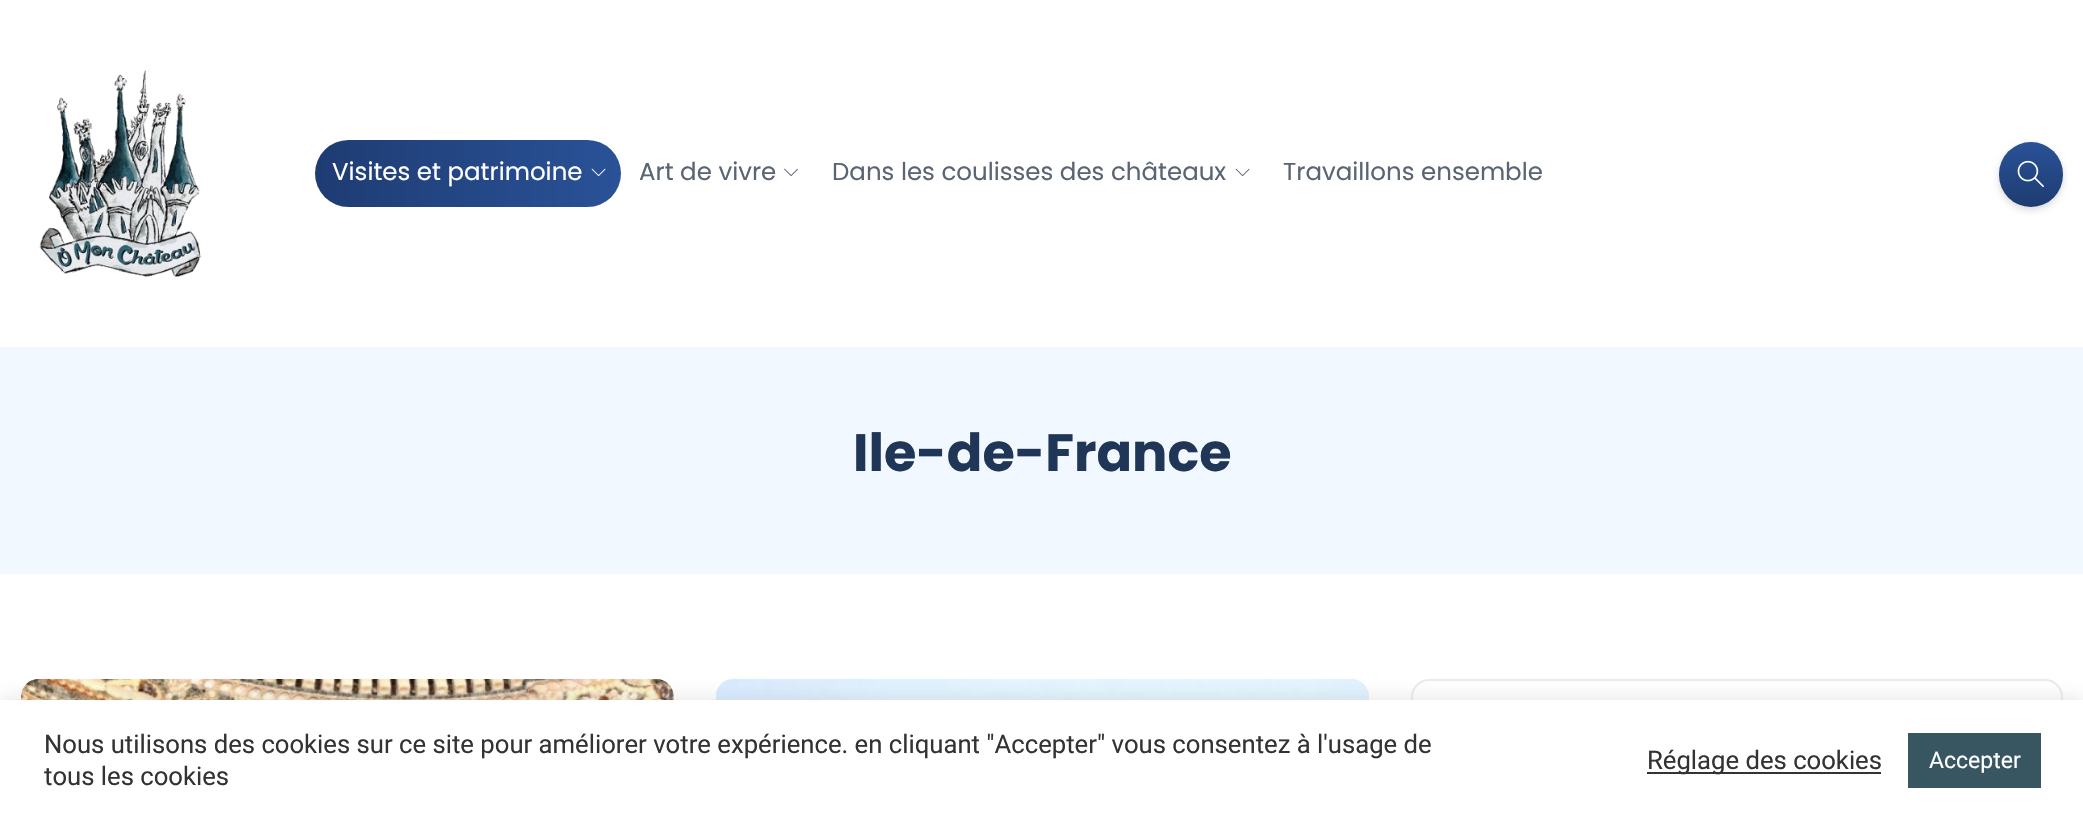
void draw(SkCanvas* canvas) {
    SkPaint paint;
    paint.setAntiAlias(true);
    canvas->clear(0xFFFFFFFF);
    canvas->drawImageRect(SkImages::DeferredFromEncodedData(SkData::MakeFromFileName("img1.png")), SkRect::MakeXYWH(39, 70, 162, 207), SkSamplingOptions());
    {
        const SkColor colors[] = {0xFF1E3C72, 0xFF2A5298};
        const float stops[] = {0, 1};
        const SkPoint ends[] = {{315, 173}, {621, 173}};
        paint.setShader(SkGradientShader::MakeLinear(ends, colors, stops, 2, SkTileMode::kClamp));
        paint.setAlpha(255);
    }
    canvas->drawRoundRect(SkRect::MakeXYWH(315, 140, 306, 67), 33.5f, 33.5f, paint);
    SkFont font1(fontMgr->matchFamilyStyle("Poppins", SkFontStyle::Normal()), 24.5f);
    font1.setSubpixel(true);
    paint.setShader(nullptr);
    paint.setColor(0xFFFFFFFF);
    canvas->drawString("Visites et patrimoine", 332, 180, font1, paint);
    canvas->drawImageRect(SkImages::DeferredFromEncodedData(SkData::MakeFromFileName("img2.png")), SkRect::MakeXYWH(591, 168, 15, 9), SkSamplingOptions());
    paint.setColor(0xFF5A6472);
    canvas->drawString("Art de vivre", 639, 180, font1, paint);
    canvas->drawImageRect(SkImages::DeferredFromEncodedData(SkData::MakeFromFileName("img3.png")), SkRect::MakeXYWH(784, 168, 14, 8), SkSamplingOptions());
    canvas->drawString("Dans les coulisses des châteaux", 832, 180, font1, paint);
    canvas->drawImageRect(SkImages::DeferredFromEncodedData(SkData::MakeFromFileName("img4.png")), SkRect::MakeXYWH(1235, 168, 15, 9), SkSamplingOptions());
    canvas->drawString("Travaillons ensemble", 1283, 180, font1, paint);
    paint.setColor(0x26000000);
    paint.setMaskFilter(SkMaskFilter::MakeBlur(kNormal_SkBlurStyle, 3.5f));
    canvas->drawRoundRect(SkRect::MakeXYWH(1999, 145, 64, 65), 32, 32, paint);
    paint.setMaskFilter(nullptr);
    {
        const SkColor colors[] = {0xFF2A5298, 0xFF1E3C72, 0xFF2A5298};
        const float stops[] = {0, 0.51f, 1};
        const SkPoint ends[] = {{2031, 271}, {2031, 142}};
        paint.setShader(SkGradientShader::MakeLinear(ends, colors, stops, 3, SkTileMode::kClamp));
        paint.setAlpha(255);
    }
    canvas->drawRoundRect(SkRect::MakeXYWH(1999, 142, 64, 65), 32, 32, paint);
    canvas->drawImageRect(SkImages::DeferredFromEncodedData(SkData::MakeFromFileName("img5.png")), SkRect::MakeXYWH(2017, 160, 27, 28), SkSamplingOptions());
    paint.setShader(nullptr);
    paint.setColor(0xFFF1F8FF);
    canvas->drawRect(SkRect::MakeXYWH(0, 347, 2083, 227), paint);
    SkFont font2(fontMgr->matchFamilyStyle("Poppins", SkFontStyle::Bold()), 52.5f);
    font2.setSubpixel(true);
    paint.setColor(0xFF203656);
    canvas->drawString("Ile-de-France", 853, 471, font2, paint);
    paint.setStyle(SkPaint::kStroke_Style);
    paint.setStrokeWidth(2);
    paint.setColor(0xFFEBEBEB);
    canvas->drawRoundRect(SkRect::MakeXYWH(22, 680, 651, 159), 17, 17, paint);
    canvas->drawImageRect(SkImages::DeferredFromEncodedData(SkData::MakeFromFileName("img6.png")), SkRect::MakeXYWH(21, 679, 653, 21), SkSamplingOptions());
    canvas->drawRoundRect(SkRect::MakeXYWH(717, 680, 651, 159), 17, 17, paint);
    canvas->drawImageRect(SkImages::DeferredFromEncodedData(SkData::MakeFromFileName("img7.png")), SkRect::MakeXYWH(716, 679, 653, 21), SkSamplingOptions());
    canvas->drawRoundRect(SkRect::MakeXYWH(1412, 680, 650, 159), 17, 17, paint);
    paint.setStyle(SkPaint::kFill_Style);
    paint.setColor(0x4DACABAB);
    paint.setMaskFilter(SkMaskFilter::MakeBlur(kNormal_SkBlurStyle, 9));
    canvas->drawRect(SkRect::MakeXYWH(0, 698, 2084, 121), paint);
    paint.setMaskFilter(nullptr);
    paint.setColor(0xFFFFFFFF);
    canvas->drawRect(SkRect::MakeXYWH(0, 700, 2083, 120), paint);
    SkFont font3(fontMgr->matchFamilyStyle("Roboto", SkFontStyle::Normal()), 25.67f);
    font3.setSubpixel(true);
    paint.setColor(0xFF333333);
    canvas->drawString("Nous utilisons des cookies sur ce site pour améliorer votre expérience. en cliquant \"Accepter\" vous consentez à l'usage de", 44, 753, font3, paint);
    canvas->drawString("tous les cookies", 44, 785, font3, paint);
    canvas->drawRect(SkRect::MakeXYWH(1647, 772, 234, 2), paint);
    canvas->drawString("Réglage des cookies", 1647, 769, font3, paint);
    paint.setColor(0xFF385662);
    canvas->drawRect(SkRect::MakeXYWH(1908, 733, 133, 55), paint);
    SkFont font4(fontMgr->matchFamilyStyle("Roboto", SkFontStyle::Normal()), 23);
    font4.setSubpixel(true);
    paint.setColor(0xFFFFFFFF);
    canvas->drawString("Accepter", 1929, 768, font4, paint);
}
